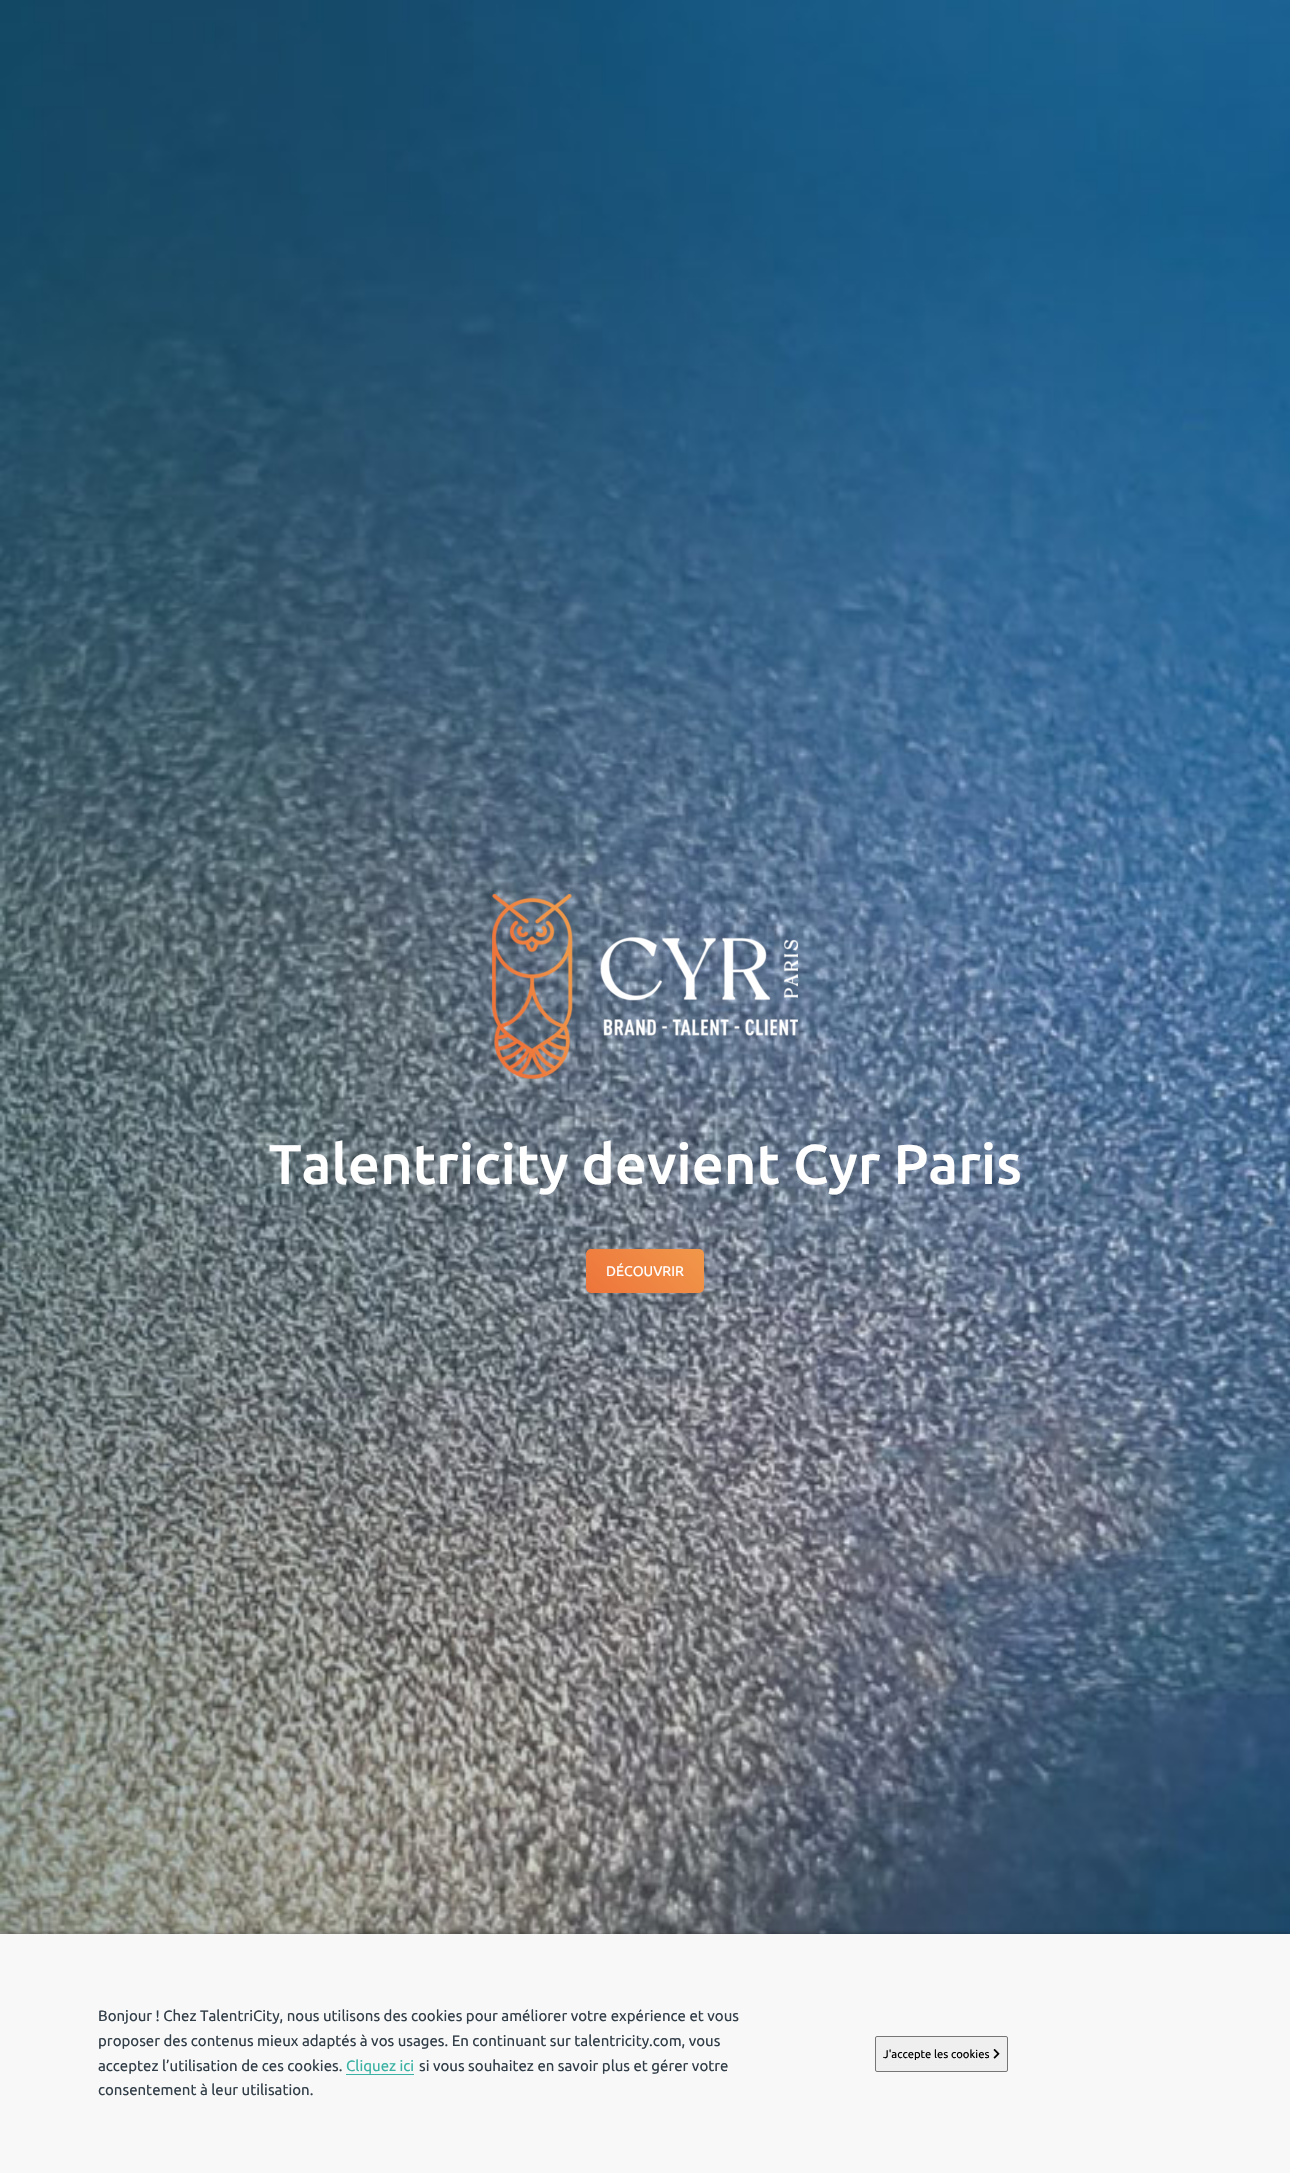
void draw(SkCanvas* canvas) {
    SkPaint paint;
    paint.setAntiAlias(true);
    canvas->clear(0xFFFFFFFF);
    canvas->drawImageRect(SkImages::DeferredFromEncodedData(SkData::MakeFromFileName("img1.png")), SkRect::MakeXYWH(0, 0, 1290, 1934), SkSamplingOptions());
    canvas->drawImageRect(SkImages::DeferredFromEncodedData(SkData::MakeFromFileName("img2.png")), SkRect::MakeXYWH(492, 894, 306, 185), SkSamplingOptions());
    SkFont font1(fontMgr->matchFamilyStyle("Ubuntu", SkFontStyle(500, SkFontStyle::kNormal_Width, SkFontStyle::kUpright_Slant)), 56);
    font1.setSubpixel(true);
    paint.setColor(0xFFFFFFFF);
    canvas->drawString("Talentricity devient Cyr Paris", 269, 1184, font1, paint);
    {
        const SkColor colors[] = {0xFFEE743B, 0xFFF1984A};
        const float stops[] = {0, 1};
        const SkPoint ends[] = {{605, 1312}, {686, 1231}};
        paint.setShader(SkGradientShader::MakeLinear(ends, colors, stops, 2, SkTileMode::kClamp));
        paint.setAlpha(255);
    }
    canvas->drawRoundRect(SkRect::MakeXYWH(586, 1249, 118, 44), 5, 5, paint);
    SkFont font2(fontMgr->matchFamilyStyle("Ubuntu", SkFontStyle::Normal()), 14);
    font2.setSubpixel(true);
    paint.setShader(nullptr);
    paint.setColor(0xFFFFFFFF);
    canvas->drawString("DÉCOUVRIR", 606, 1276, font2, paint);
    paint.setColor(0x33000000);
    paint.setMaskFilter(SkMaskFilter::MakeBlur(kNormal_SkBlurStyle, 2));
    canvas->drawRect(SkRect::MakeXYWH(0, 1932, 1290, 239), paint);
    paint.setMaskFilter(nullptr);
    paint.setColor(0xFFF8F8F8);
    canvas->drawRect(SkRect::MakeXYWH(0, 1934, 1290, 239), paint);
    SkFont font3(fontMgr->matchFamilyStyle("Ubuntu", SkFontStyle::Normal()), 15);
    font3.setSubpixel(true);
    paint.setColor(0xFF323E48);
    canvas->drawString("Bonjour ! Chez TalentriCity, nous utilisons des cookies pour améliorer votre expérience et vous", 98, 2021, font3, paint);
    canvas->drawString("proposer des contenus mieux adaptés à vos usages. En continuant sur talentricity.com, vous", 98, 2046, font3, paint);
    canvas->drawString("acceptez l’utilisation de ces cookies.", 98, 2071, font3, paint);
    paint.setColor(0xFF3BB2A4);
    canvas->drawString("Cliquez ici", 346, 2071, font3, paint);
    canvas->drawRect(SkRect::MakeXYWH(346, 2074, 68, 1), paint);
    paint.setColor(0xFF323E48);
    canvas->drawString("si vous souhaitez en savoir plus et gérer votre", 419, 2071, font3, paint);
    canvas->drawString("consentement à leur utilisation.", 98, 2095, font3, paint);
    paint.setColor(0xFFEFEFEF);
    canvas->drawRoundRect(SkRect::MakeXYWH(875.5f, 2036.5f, 132, 35), 1.5f, 1.5f, paint);
    paint.setStyle(SkPaint::kStroke_Style);
    paint.setStrokeWidth(1);
    paint.setColor(0xFF767676);
    canvas->drawRoundRect(SkRect::MakeXYWH(875.5f, 2036.5f, 132, 35), 1.5f, 1.5f, paint);
    SkFont font4(fontMgr->matchFamilyStyle("Ubuntu", SkFontStyle::Normal()), 11.25f);
    font4.setSubpixel(true);
    paint.setStyle(SkPaint::kFill_Style);
    paint.setColor(0xFF000000);
    canvas->drawString("J'accepte les cookies", 883, 2058, font4, paint);
    canvas->drawImageRect(SkImages::DeferredFromEncodedData(SkData::MakeFromFileName("img3.png")), SkRect::MakeXYWH(993, 2049, 7, 10), SkSamplingOptions());
}
